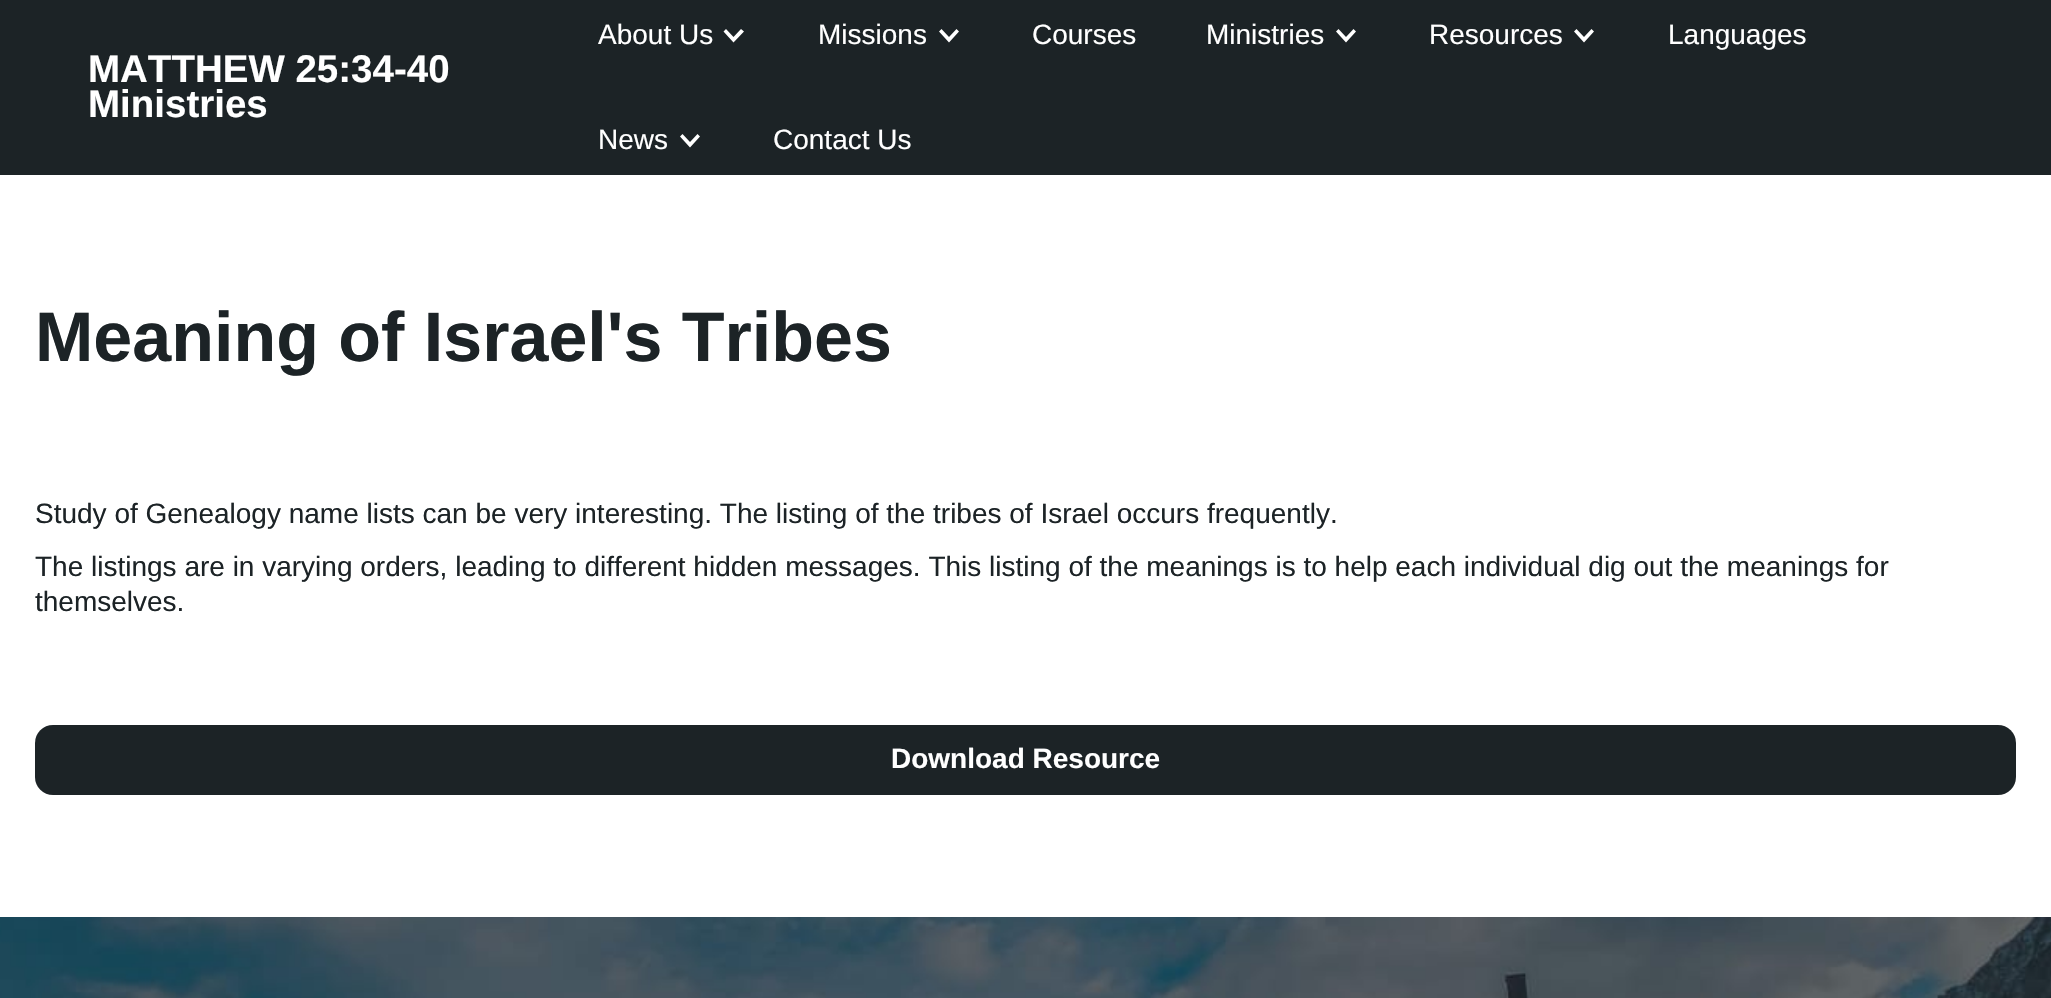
void draw(SkCanvas* canvas) {
    SkPaint paint;
    paint.setAntiAlias(true);
    canvas->clear(0xFFFFFFFF);
    paint.setColor(0xFF1C2326);
    canvas->drawRect(SkRect::MakeXYWH(0, 0, 2051, 175), paint);
    SkFont font1(fontMgr->matchFamilyStyle("Liberation Sans", SkFontStyle::Bold()), 38.5f);
    font1.setSubpixel(true);
    paint.setColor(0xFFFFFFFF);
    canvas->drawString("MATTHEW 25:34-40", 88, 82, font1, paint);
    canvas->drawString("Ministries", 88, 117, font1, paint);
    SkFont font2(fontMgr->matchFamilyStyle("Liberation Sans", SkFontStyle::Normal()), 28);
    font2.setSubpixel(true);
    canvas->drawString("About Us", 598, 44, font2, paint);
    canvas->drawPath(SkPathBuilder().moveTo(741, 29).lineTo(733.5f, 37).lineTo(726, 29).lineTo(723.5f, 31.5f).lineTo(733.5f, 42.5f).lineTo(744, 31.5f).close().detach(), paint);
    canvas->drawString("Missions", 818, 44, font2, paint);
    canvas->drawPath(SkPathBuilder().moveTo(956.5f, 29).lineTo(949, 37).lineTo(941.5f, 29).lineTo(939, 31.5f).lineTo(949, 42.5f).lineTo(959, 31.5f).close().detach(), paint);
    canvas->drawString("Courses", 1032, 44, font2, paint);
    canvas->drawString("Ministries", 1206, 44, font2, paint);
    canvas->drawPath(SkPathBuilder().moveTo(1353.5f, 29).lineTo(1346, 37).lineTo(1338.5f, 29).lineTo(1336, 31.5f).lineTo(1346, 42.5f).lineTo(1356, 31.5f).close().detach(), paint);
    canvas->drawString("Resources", 1429, 44, font2, paint);
    canvas->drawPath(SkPathBuilder().moveTo(1591.5f, 29).lineTo(1584, 37).lineTo(1576.5f, 29).lineTo(1574, 31.5f).lineTo(1584, 42.5f).lineTo(1594, 31.5f).close().detach(), paint);
    canvas->drawString("Languages", 1668, 44, font2, paint);
    canvas->drawString("News", 598, 149, font2, paint);
    canvas->drawPath(SkPathBuilder().moveTo(697.5f, 134).lineTo(690, 142).lineTo(682.5f, 134).lineTo(680, 136.5f).lineTo(690, 147.5f).lineTo(700, 136.5f).close().detach(), paint);
    canvas->drawString("Contact Us", 773, 149, font2, paint);
    SkFont font3(fontMgr->matchFamilyStyle("Liberation Sans", SkFontStyle::Bold()), 70);
    font3.setSubpixel(true);
    paint.setColor(0xFF1C2326);
    canvas->drawString("Meaning of Israel's Tribes", 35, 361, font3, paint);
    canvas->drawString("Study of Genealogy name lists can be very interesting. The listing of the tribes of Israel occurs frequently.", 35, 523, font2, paint);
    canvas->drawString("The listings are in varying orders, leading to different hidden messages. This listing of the meanings is to help each individual dig out the meanings for", 35, 576, font2, paint);
    canvas->drawString("themselves.", 35, 611, font2, paint);
    canvas->drawRoundRect(SkRect::MakeXYWH(35, 725, 1981, 70), 18, 18, paint);
    SkFont font4(fontMgr->matchFamilyStyle("Liberation Sans", SkFontStyle::Bold()), 28);
    font4.setSubpixel(true);
    paint.setColor(0xFFFFFFFF);
    canvas->drawString("Download Resource", 891, 768, font4, paint);
    canvas->drawImageRect(SkImages::DeferredFromEncodedData(SkData::MakeFromFileName("img1.png")), SkRect::MakeXYWH(0, 917, 2051, 81), SkSamplingOptions());
}
